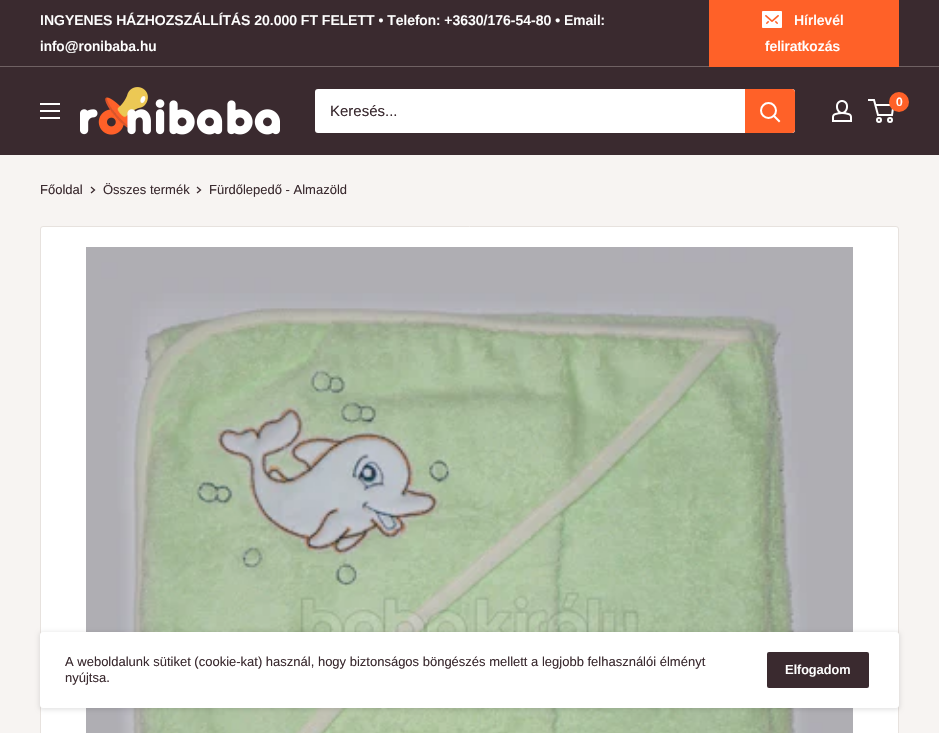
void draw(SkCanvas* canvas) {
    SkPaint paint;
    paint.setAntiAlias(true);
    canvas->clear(0xFFF7F4F2);
    paint.setColor(0xFF3A2A2F);
    canvas->drawRect(SkRect::MakeXYWH(0, 0, 939, 66), paint);
    paint.setColor(0xFF6F6163);
    canvas->drawRect(SkRect::MakeXYWH(0, 66, 939, 1), paint);
    SkFont font1(fontMgr->matchFamilyStyle("Arimo", SkFontStyle(600, SkFontStyle::kNormal_Width, SkFontStyle::kUpright_Slant)), 14);
    font1.setSubpixel(true);
    paint.setColor(0xFFFFFFFF);
    canvas->drawString("INGYENES HÁZHOZSZÁLLÍTÁS 20.000 FT FELETT • Telefon: +3630/176-54-80 • Email:", 40, 25, font1, paint);
    canvas->drawString("info@ronibaba.hu", 40, 51, font1, paint);
    paint.setColor(0xFFFF6128);
    canvas->drawRect(SkRect::MakeXYWH(709, 0, 190, 67), paint);
    canvas->drawImageRect(SkImages::DeferredFromEncodedData(SkData::MakeFromFileName("img1.png")), SkRect::MakeXYWH(762, 11, 20, 17), SkSamplingOptions());
    paint.setColor(0xFFFFFFFF);
    canvas->drawString("Hírlevél", 794, 25, font1, paint);
    canvas->drawString("feliratkozás", 765, 51, font1, paint);
    paint.setColor(0xFF3A2A2F);
    canvas->drawRect(SkRect::MakeXYWH(0, 67, 939, 88), paint);
    canvas->drawImageRect(SkImages::DeferredFromEncodedData(SkData::MakeFromFileName("img2.png")), SkRect::MakeXYWH(80, 87, 200, 48), SkSamplingOptions());
    canvas->drawImageRect(SkImages::DeferredFromEncodedData(SkData::MakeFromFileName("img3.png")), SkRect::MakeXYWH(832, 100, 20, 22), SkSamplingOptions());
    paint.setStyle(SkPaint::kStroke_Style);
    paint.setStrokeWidth(2);
    paint.setColor(0xFFFFFFFF);
    canvas->drawCircle(879, 120, 2, paint);
    canvas->drawCircle(890, 120, 2, paint);
    canvas->drawPath(SkPathBuilder().moveTo(875.5f, 105).lineTo(893.5f, 105).lineTo(892, 115).lineTo(878, 115).lineTo(874, 100).lineTo(868, 100).detach(), paint);
    paint.setStyle(SkPaint::kFill_Style);
    paint.setColor(0xFFFF6128);
    canvas->drawCircle(899, 102, 10, paint);
    SkFont font2(fontMgr->matchFamilyStyle("Arimo", SkFontStyle(600, SkFontStyle::kNormal_Width, SkFontStyle::kUpright_Slant)), 12);
    font2.setSubpixel(true);
    paint.setColor(0xFFFFFFFF);
    canvas->drawString("0", 896, 106, font2, paint);
    canvas->drawImageRect(SkImages::DeferredFromEncodedData(SkData::MakeFromFileName("img4.png")), SkRect::MakeXYWH(40, 103, 20, 16), SkSamplingOptions());
    canvas->drawRoundRect(SkRect::MakeXYWH(315, 89, 480, 44), 3, 3, paint);
    SkFont font3(fontMgr->matchFamilyStyle("Arimo", SkFontStyle::Normal()), 15);
    font3.setSubpixel(true);
    paint.setColor(0xFF3A2A2F);
    canvas->drawString("Keresés...", 330, 116, font3, paint);
    paint.setColor(0xFFFF6128);
    canvas->drawPath(SkPathBuilder().moveTo(745, 89).lineTo(792, 89).cubicTo(793.5f, 89, 795, 90.5f, 795, 92).lineTo(795, 130).cubicTo(795, 131.5f, 793.5f, 133, 792, 133).lineTo(745, 133).close().detach(), paint);
    paint.setStyle(SkPaint::kStroke_Style);
    paint.setStrokeCap(SkPaint::kSquare_Cap);
    paint.setColor(0xFFFFFFFF);
    canvas->drawPath(SkPathBuilder().moveTo(779, 121).lineTo(774, 116).detach(), paint);
    paint.setStrokeCap(SkPaint::kButt_Cap);
    canvas->drawCircle(768.5f, 110.5f, 7.5f, paint);
    SkFont font4(fontMgr->matchFamilyStyle("Arimo", SkFontStyle::Normal()), 13);
    font4.setSubpixel(true);
    paint.setStyle(SkPaint::kFill_Style);
    paint.setColor(0xFF3A2A2F);
    canvas->drawString("Főoldal", 40, 194, font4, paint);
    paint.setStyle(SkPaint::kStroke_Style);
    paint.setStrokeWidth(1.3f);
    paint.setStrokeCap(SkPaint::kSquare_Cap);
    canvas->drawPath(SkPathBuilder().moveTo(91.5f, 187.5f).lineTo(94.5f, 190).lineTo(91.5f, 192.5f).detach(), paint);
    paint.setStyle(SkPaint::kFill_Style);
    canvas->drawString("Összes termék", 103, 194, font4, paint);
    paint.setStyle(SkPaint::kStroke_Style);
    canvas->drawPath(SkPathBuilder().moveTo(197.5f, 187.5f).lineTo(200.5f, 190).lineTo(197.5f, 192.5f).detach(), paint);
    paint.setStyle(SkPaint::kFill_Style);
    canvas->drawString("Fürdőlepedő - Almazöld", 209, 194, font4, paint);
    paint.setColor(0xFFFFFFFF);
    canvas->drawRoundRect(SkRect::MakeXYWH(40.5f, 226.5f, 858, 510), 2.5f, 2.5f, paint);
    paint.setStyle(SkPaint::kStroke_Style);
    paint.setStrokeWidth(1);
    paint.setStrokeCap(SkPaint::kButt_Cap);
    paint.setColor(0xFFE7E2DE);
    canvas->drawRoundRect(SkRect::MakeXYWH(40.5f, 226.5f, 858, 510), 2.5f, 2.5f, paint);
    canvas->drawImageRect(SkImages::DeferredFromEncodedData(SkData::MakeFromFileName("img5.png")), SkRect::MakeXYWH(86, 247, 767, 486), SkSamplingOptions());
    paint.setStyle(SkPaint::kFill_Style);
    paint.setColor(0x1A000000);
    paint.setMaskFilter(SkMaskFilter::MakeBlur(kNormal_SkBlurStyle, 2));
    canvas->drawRoundRect(SkRect::MakeXYWH(39, 632, 861, 78), 4, 4, paint);
    paint.setMaskFilter(nullptr);
    paint.setColor(0xFFFFFFFF);
    canvas->drawRoundRect(SkRect::MakeXYWH(40, 632, 859, 76), 3, 3, paint);
    paint.setColor(0xFF3A2A2F);
    canvas->drawString("A weboldalunk sütiket (cookie-kat) használ, hogy biztonságos böngészés mellett a legjobb felhasználói élményt", 65, 666, font4, paint);
    canvas->drawString("nyújtsa.", 65, 682, font4, paint);
    canvas->drawRoundRect(SkRect::MakeXYWH(767, 652, 102, 36), 2, 2, paint);
    SkFont font5(fontMgr->matchFamilyStyle("Arimo", SkFontStyle(600, SkFontStyle::kNormal_Width, SkFontStyle::kUpright_Slant)), 13);
    font5.setSubpixel(true);
    paint.setColor(0xFFFFFFFF);
    canvas->drawString("Elfogadom", 785, 674, font5, paint);
}
